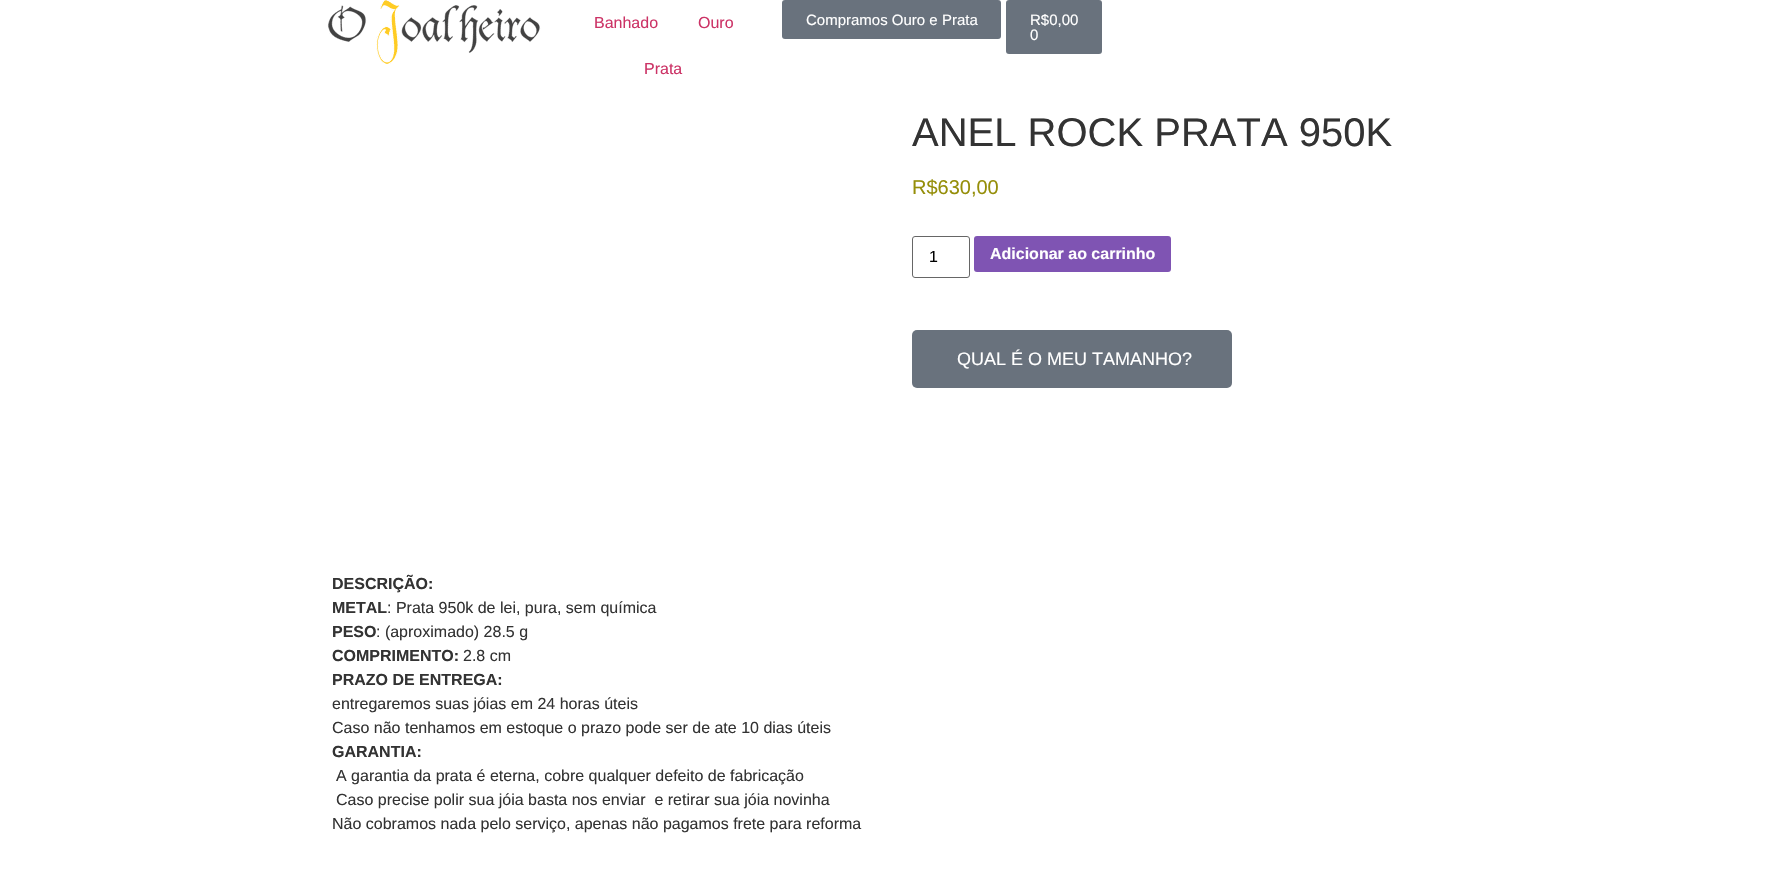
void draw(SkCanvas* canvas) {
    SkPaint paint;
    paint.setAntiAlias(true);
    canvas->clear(0xFFFFFFFF);
    canvas->drawImageRect(SkImages::DeferredFromEncodedData(SkData::MakeFromFileName("img1.png")), SkRect::MakeXYWH(327, 0, 214, 64), SkSamplingOptions());
    SkFont font1(fontMgr->matchFamilyStyle("Liberation Sans", SkFontStyle::Normal()), 16);
    font1.setSubpixel(true);
    paint.setColor(0xFFCC3366);
    canvas->drawString("Banhado", 594, 28, font1, paint);
    canvas->drawString("Ouro", 698, 28, font1, paint);
    canvas->drawString("Prata", 644, 74, font1, paint);
    paint.setColor(0xFF69727D);
    canvas->drawRoundRect(SkRect::MakeXYWH(782, 0, 219, 39), 3, 3, paint);
    SkFont font2(fontMgr->matchFamilyStyle("Liberation Sans", SkFontStyle::Normal()), 15);
    font2.setSubpixel(true);
    paint.setColor(0xFFFFFFFF);
    canvas->drawString("Compramos Ouro e Prata", 806, 25, font2, paint);
    paint.setColor(0xFF69727D);
    canvas->drawRoundRect(SkRect::MakeXYWH(1006, 0, 96, 54), 3, 3, paint);
    paint.setColor(0xFFFFFFFF);
    canvas->drawString("R$0,00", 1030, 25, font2, paint);
    canvas->drawString("0", 1030, 40, font2, paint);
    SkFont font3(fontMgr->matchFamilyStyle("Liberation Sans", SkFontStyle::Normal()), 40);
    font3.setSubpixel(true);
    paint.setColor(0xFF333333);
    canvas->drawString("ANEL ROCK PRATA 950K", 912, 146, font3, paint);
    SkFont font4(fontMgr->matchFamilyStyle("Liberation Sans", SkFontStyle::Normal()), 20);
    font4.setSubpixel(true);
    paint.setColor(0xFF958E09);
    canvas->drawString("R$630,00", 912, 194, font4, paint);
    paint.setStyle(SkPaint::kStroke_Style);
    paint.setStrokeWidth(1);
    paint.setColor(0xFF666666);
    canvas->drawRoundRect(SkRect::MakeXYWH(912.5f, 236.5f, 57, 41), 2.5f, 2.5f, paint);
    paint.setStyle(SkPaint::kFill_Style);
    paint.setColor(0xFF000000);
    canvas->drawString("1", 929, 262, font1, paint);
    paint.setColor(0xFF7F54B3);
    canvas->drawRoundRect(SkRect::MakeXYWH(974, 236, 197, 36), 3, 3, paint);
    SkFont font5(fontMgr->matchFamilyStyle("Liberation Sans", SkFontStyle::Bold()), 16);
    font5.setSubpixel(true);
    paint.setColor(0xFFFFFFFF);
    canvas->drawString("Adicionar ao carrinho", 990, 259, font5, paint);
    paint.setColor(0xFF69727D);
    canvas->drawRoundRect(SkRect::MakeXYWH(912, 330, 320, 58), 5, 5, paint);
    SkFont font6(fontMgr->matchFamilyStyle("Liberation Sans", SkFontStyle::Normal()), 18);
    font6.setSubpixel(true);
    paint.setColor(0xFFFFFFFF);
    canvas->drawString("QUAL É O MEU TAMANHO?", 957, 365, font6, paint);
    paint.setColor(0xFF333333);
    canvas->drawString("DESCRIÇÃO:", 332, 589, font5, paint);
    canvas->drawString("METAL", 332, 613, font5, paint);
    canvas->drawString(": Prata 950k de lei, pura, sem química", 387, 613, font1, paint);
    canvas->drawString("PESO", 332, 637, font5, paint);
    canvas->drawString(": (aproximado) 28.5 g", 376, 637, font1, paint);
    canvas->drawString("COMPRIMENTO:", 332, 661, font5, paint);
    canvas->drawString("2.8 cm", 463, 661, font1, paint);
    canvas->drawString("PRAZO DE ENTREGA:", 332, 685, font5, paint);
    canvas->drawString("entregaremos suas jóias em 24 horas úteis", 332, 709, font1, paint);
    canvas->drawString("Caso não tenhamos em estoque o prazo pode ser de ate 10 dias úteis", 332, 733, font1, paint);
    canvas->drawString("GARANTIA:", 332, 757, font5, paint);
    canvas->drawString("A garantia da prata é eterna, cobre qualquer defeito de fabricação", 336, 781, font1, paint);
    canvas->drawString("Caso precise polir sua jóia basta nos enviar  e retirar sua jóia novinha", 336, 805, font1, paint);
    canvas->drawString("Não cobramos nada pelo serviço, apenas não pagamos frete para reforma", 332, 829, font1, paint);
}
